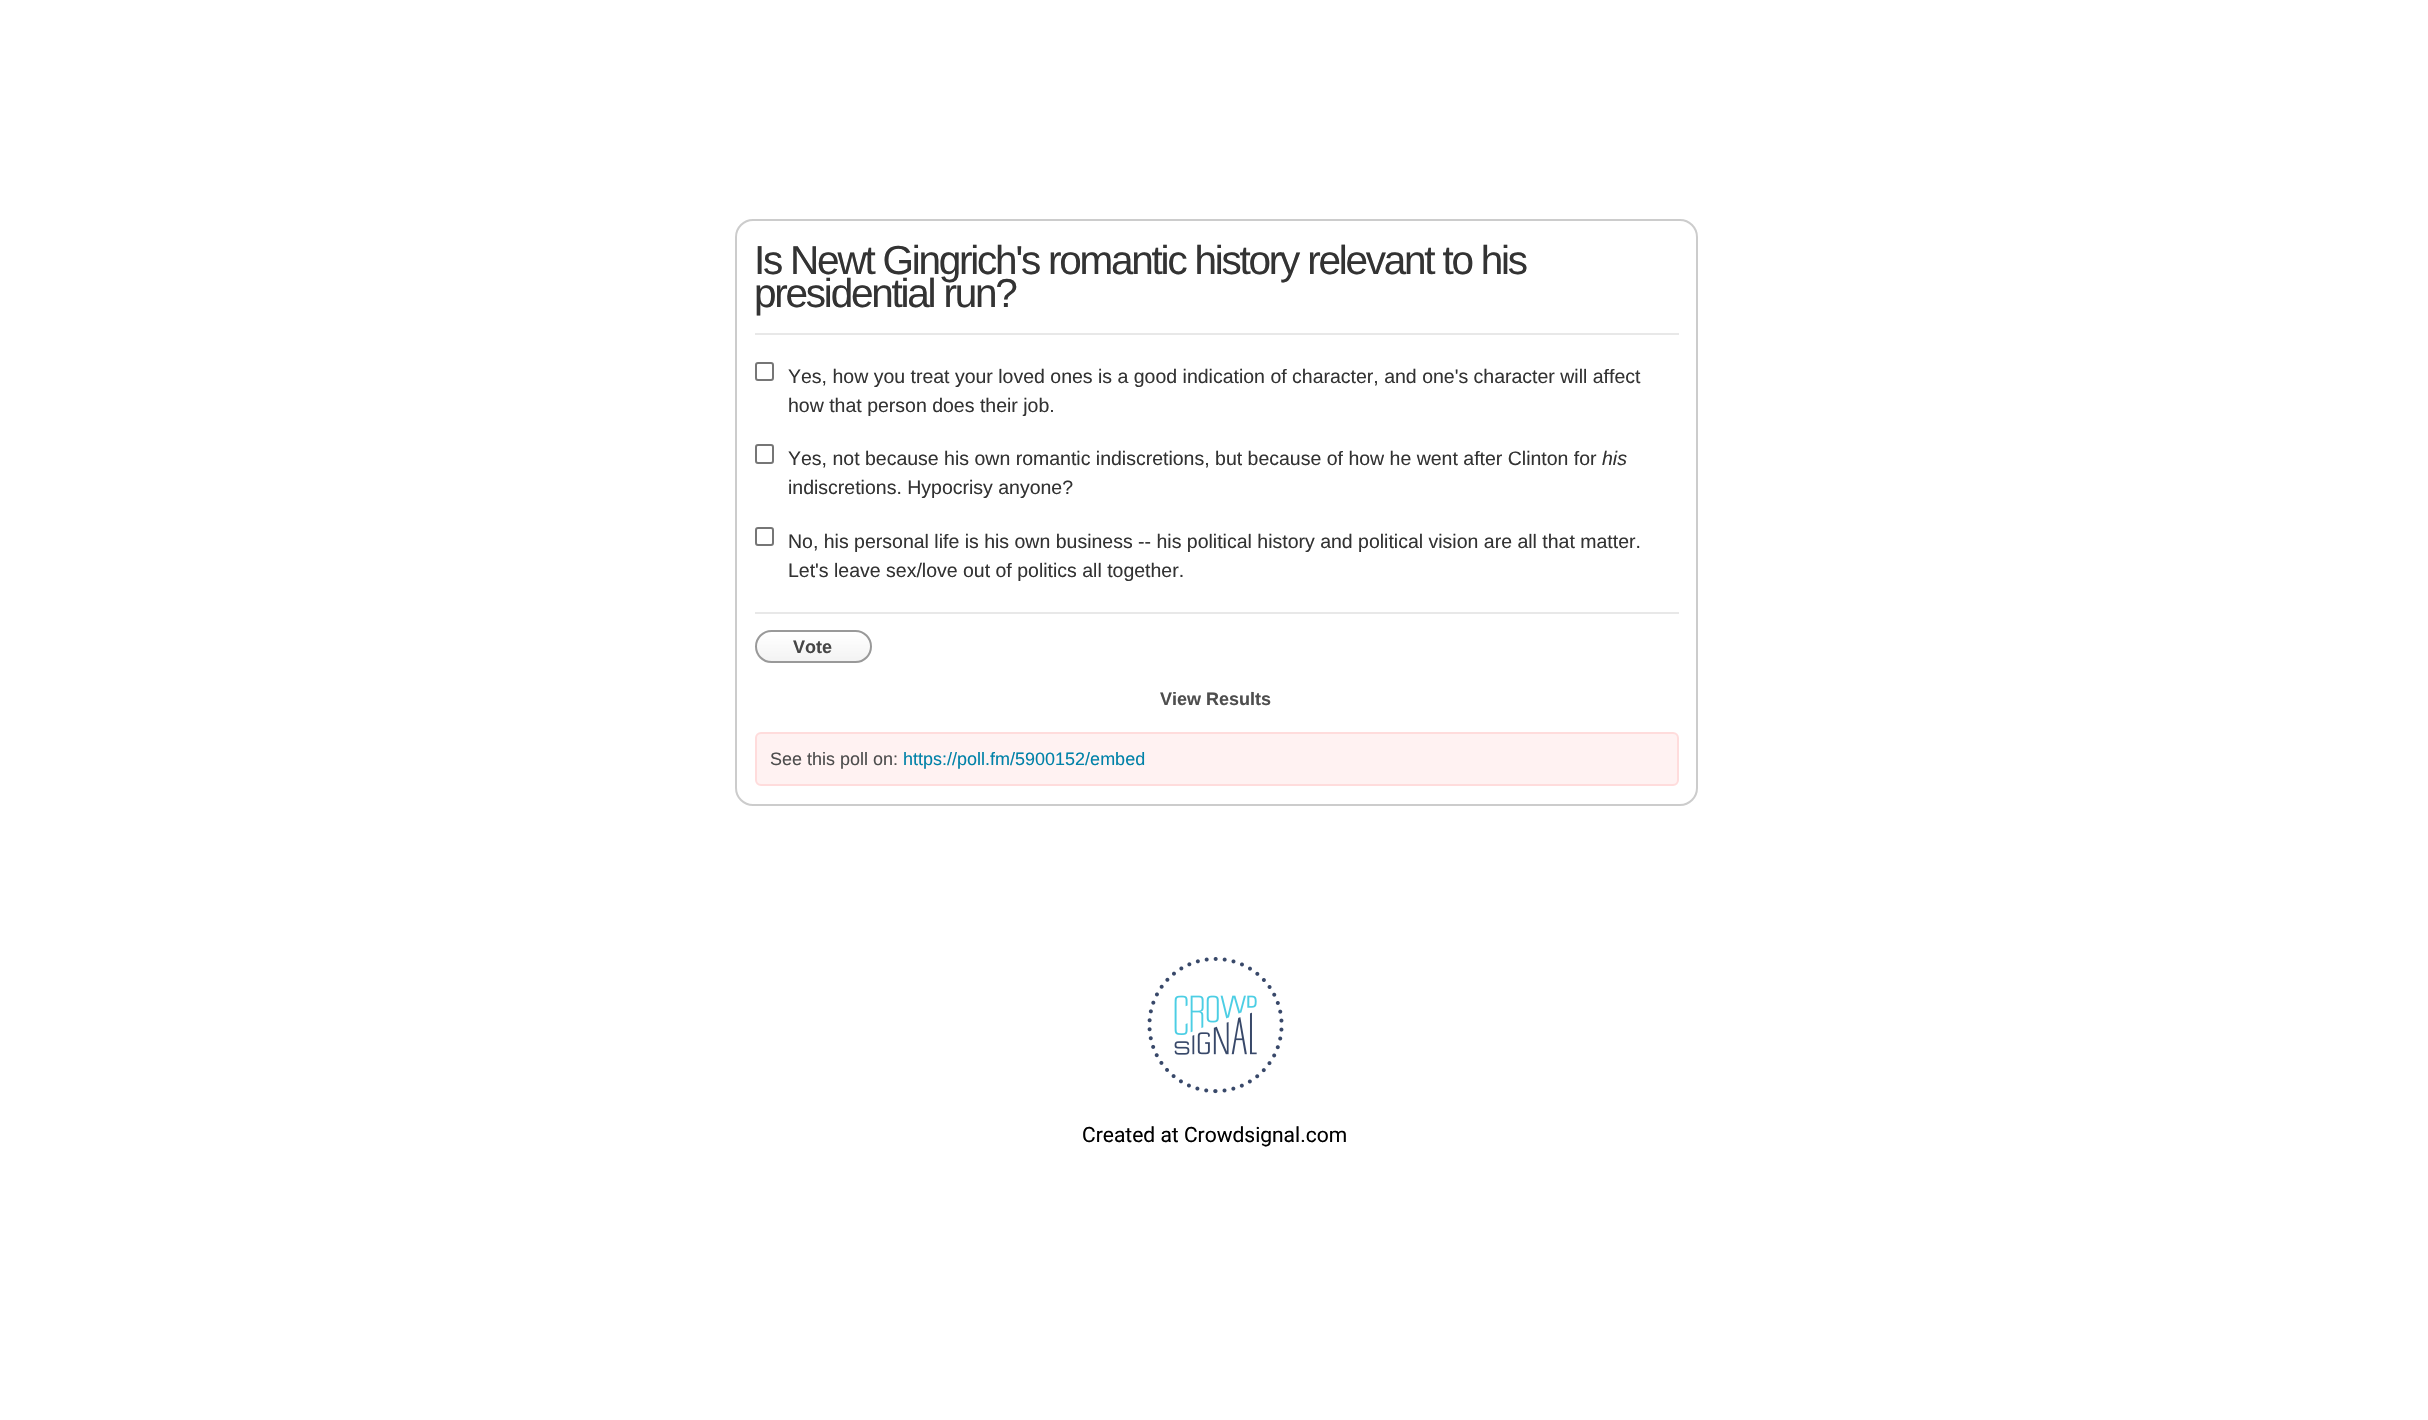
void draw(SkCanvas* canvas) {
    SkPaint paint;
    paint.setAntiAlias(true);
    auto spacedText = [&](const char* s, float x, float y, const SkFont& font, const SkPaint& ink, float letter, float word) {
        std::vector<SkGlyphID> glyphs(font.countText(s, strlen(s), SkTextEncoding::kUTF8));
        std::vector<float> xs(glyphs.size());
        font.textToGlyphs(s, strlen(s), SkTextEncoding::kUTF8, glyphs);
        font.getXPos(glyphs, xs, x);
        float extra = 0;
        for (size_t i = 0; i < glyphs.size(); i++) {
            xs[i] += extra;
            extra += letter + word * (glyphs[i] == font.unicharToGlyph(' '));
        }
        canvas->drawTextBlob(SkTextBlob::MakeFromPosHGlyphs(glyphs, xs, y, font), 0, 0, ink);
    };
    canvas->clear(0xFFFFFFFF);
    paint.setStyle(SkPaint::kStroke_Style);
    paint.setStrokeWidth(2);
    paint.setColor(0xFFCCCCCC);
    canvas->drawRoundRect(SkRect::MakeXYWH(736, 220, 961, 585), 17, 17, paint);
    SkFont font1(fontMgr->matchFamilyStyle("Liberation Sans", SkFontStyle::Normal()), 40.5f);
    font1.setSubpixel(true);
    paint.setStyle(SkPaint::kFill_Style);
    paint.setColor(0xFF333333);
    spacedText("Is Newt Gingrich's romantic history relevant to his", 754, 274, font1, paint, -2.23f, 0);
    spacedText("presidential run?", 754, 307, font1, paint, -2.23f, 0);
    paint.setColor(0xFFE8E8E8);
    canvas->drawRect(SkRect::MakeXYWH(755, 333, 924, 2), paint);
    canvas->drawRect(SkRect::MakeXYWH(755, 612, 924, 2), paint);
    paint.setStyle(SkPaint::kStroke_Style);
    paint.setColor(0xFF767676);
    canvas->drawRoundRect(SkRect::MakeXYWH(756, 363, 17, 17), 2, 2, paint);
    SkFont font2(fontMgr->matchFamilyStyle("Liberation Sans", SkFontStyle::Normal()), 19.5f);
    font2.setSubpixel(true);
    paint.setStyle(SkPaint::kFill_Style);
    paint.setColor(0xFF333333);
    canvas->drawString("Yes, how you treat your loved ones is a good indication of character, and one's character will affect", 788, 383, font2, paint);
    canvas->drawString("how that person does their job.", 788, 412, font2, paint);
    paint.setStyle(SkPaint::kStroke_Style);
    paint.setColor(0xFF767676);
    canvas->drawRoundRect(SkRect::MakeXYWH(756, 445, 17, 18), 2, 2, paint);
    paint.setStyle(SkPaint::kFill_Style);
    paint.setColor(0xFF333333);
    canvas->drawString("Yes, not because his own romantic indiscretions, but because of how he went after Clinton for", 788, 465, font2, paint);
    SkFont font3(fontMgr->matchFamilyStyle("Liberation Sans", SkFontStyle::Italic()), 19.5f);
    font3.setSubpixel(true);
    canvas->drawString("his", 1602, 465, font3, paint);
    canvas->drawString("indiscretions. Hypocrisy anyone?", 788, 494, font2, paint);
    paint.setStyle(SkPaint::kStroke_Style);
    paint.setColor(0xFF767676);
    canvas->drawRoundRect(SkRect::MakeXYWH(756, 528, 17, 17), 2, 2, paint);
    paint.setStyle(SkPaint::kFill_Style);
    paint.setColor(0xFF333333);
    canvas->drawString("No, his personal life is his own business -- his political history and political vision are all that matter.", 788, 548, font2, paint);
    canvas->drawString("Let's leave sex/love out of politics all together.", 788, 577, font2, paint);
    canvas->drawImageRect(SkImages::DeferredFromEncodedData(SkData::MakeFromFileName("img1.png")), SkRect::MakeXYWH(755, 631, 116, 32), SkSamplingOptions());
    paint.setStyle(SkPaint::kStroke_Style);
    paint.setColor(0xFF999999);
    canvas->drawRoundRect(SkRect::MakeXYWH(756, 631, 115, 31), 15.5f, 15.5f, paint);
    SkFont font4(fontMgr->matchFamilyStyle("Liberation Sans", SkFontStyle::Bold()), 18);
    font4.setSubpixel(true);
    paint.setStyle(SkPaint::kFill_Style);
    paint.setColor(0xFF464646);
    canvas->drawString("Vote", 793, 653, font4, paint);
    paint.setColor(0xFF4E4E4E);
    canvas->drawString("View Results", 1160, 705, font4, paint);
    paint.setColor(0xFFFFF2F2);
    canvas->drawRoundRect(SkRect::MakeXYWH(756, 733, 922, 52), 5, 5, paint);
    paint.setStyle(SkPaint::kStroke_Style);
    paint.setColor(0xFFFFDCDC);
    canvas->drawRoundRect(SkRect::MakeXYWH(756, 733, 922, 52), 5, 5, paint);
    SkFont font5(fontMgr->matchFamilyStyle("Liberation Sans", SkFontStyle::Normal()), 18);
    font5.setSubpixel(true);
    paint.setStyle(SkPaint::kFill_Style);
    paint.setColor(0xFF4E4E4E);
    canvas->drawString("See this poll on:", 770, 765, font5, paint);
    paint.setColor(0xFF0182A8);
    canvas->drawString("https://poll.fm/5900152/embed", 903, 765, font5, paint);
    canvas->drawImageRect(SkImages::DeferredFromEncodedData(SkData::MakeFromFileName("img2.png")), SkRect::MakeXYWH(1147, 957, 137, 137), SkSamplingOptions());
    SkFont font6(fontMgr->matchFamilyStyle("Roboto", SkFontStyle::Normal()), 21);
    font6.setSubpixel(true);
    paint.setColor(0xFF000000);
    canvas->drawString("Created at Crowdsignal.com", 1082, 1142, font6, paint);
}
